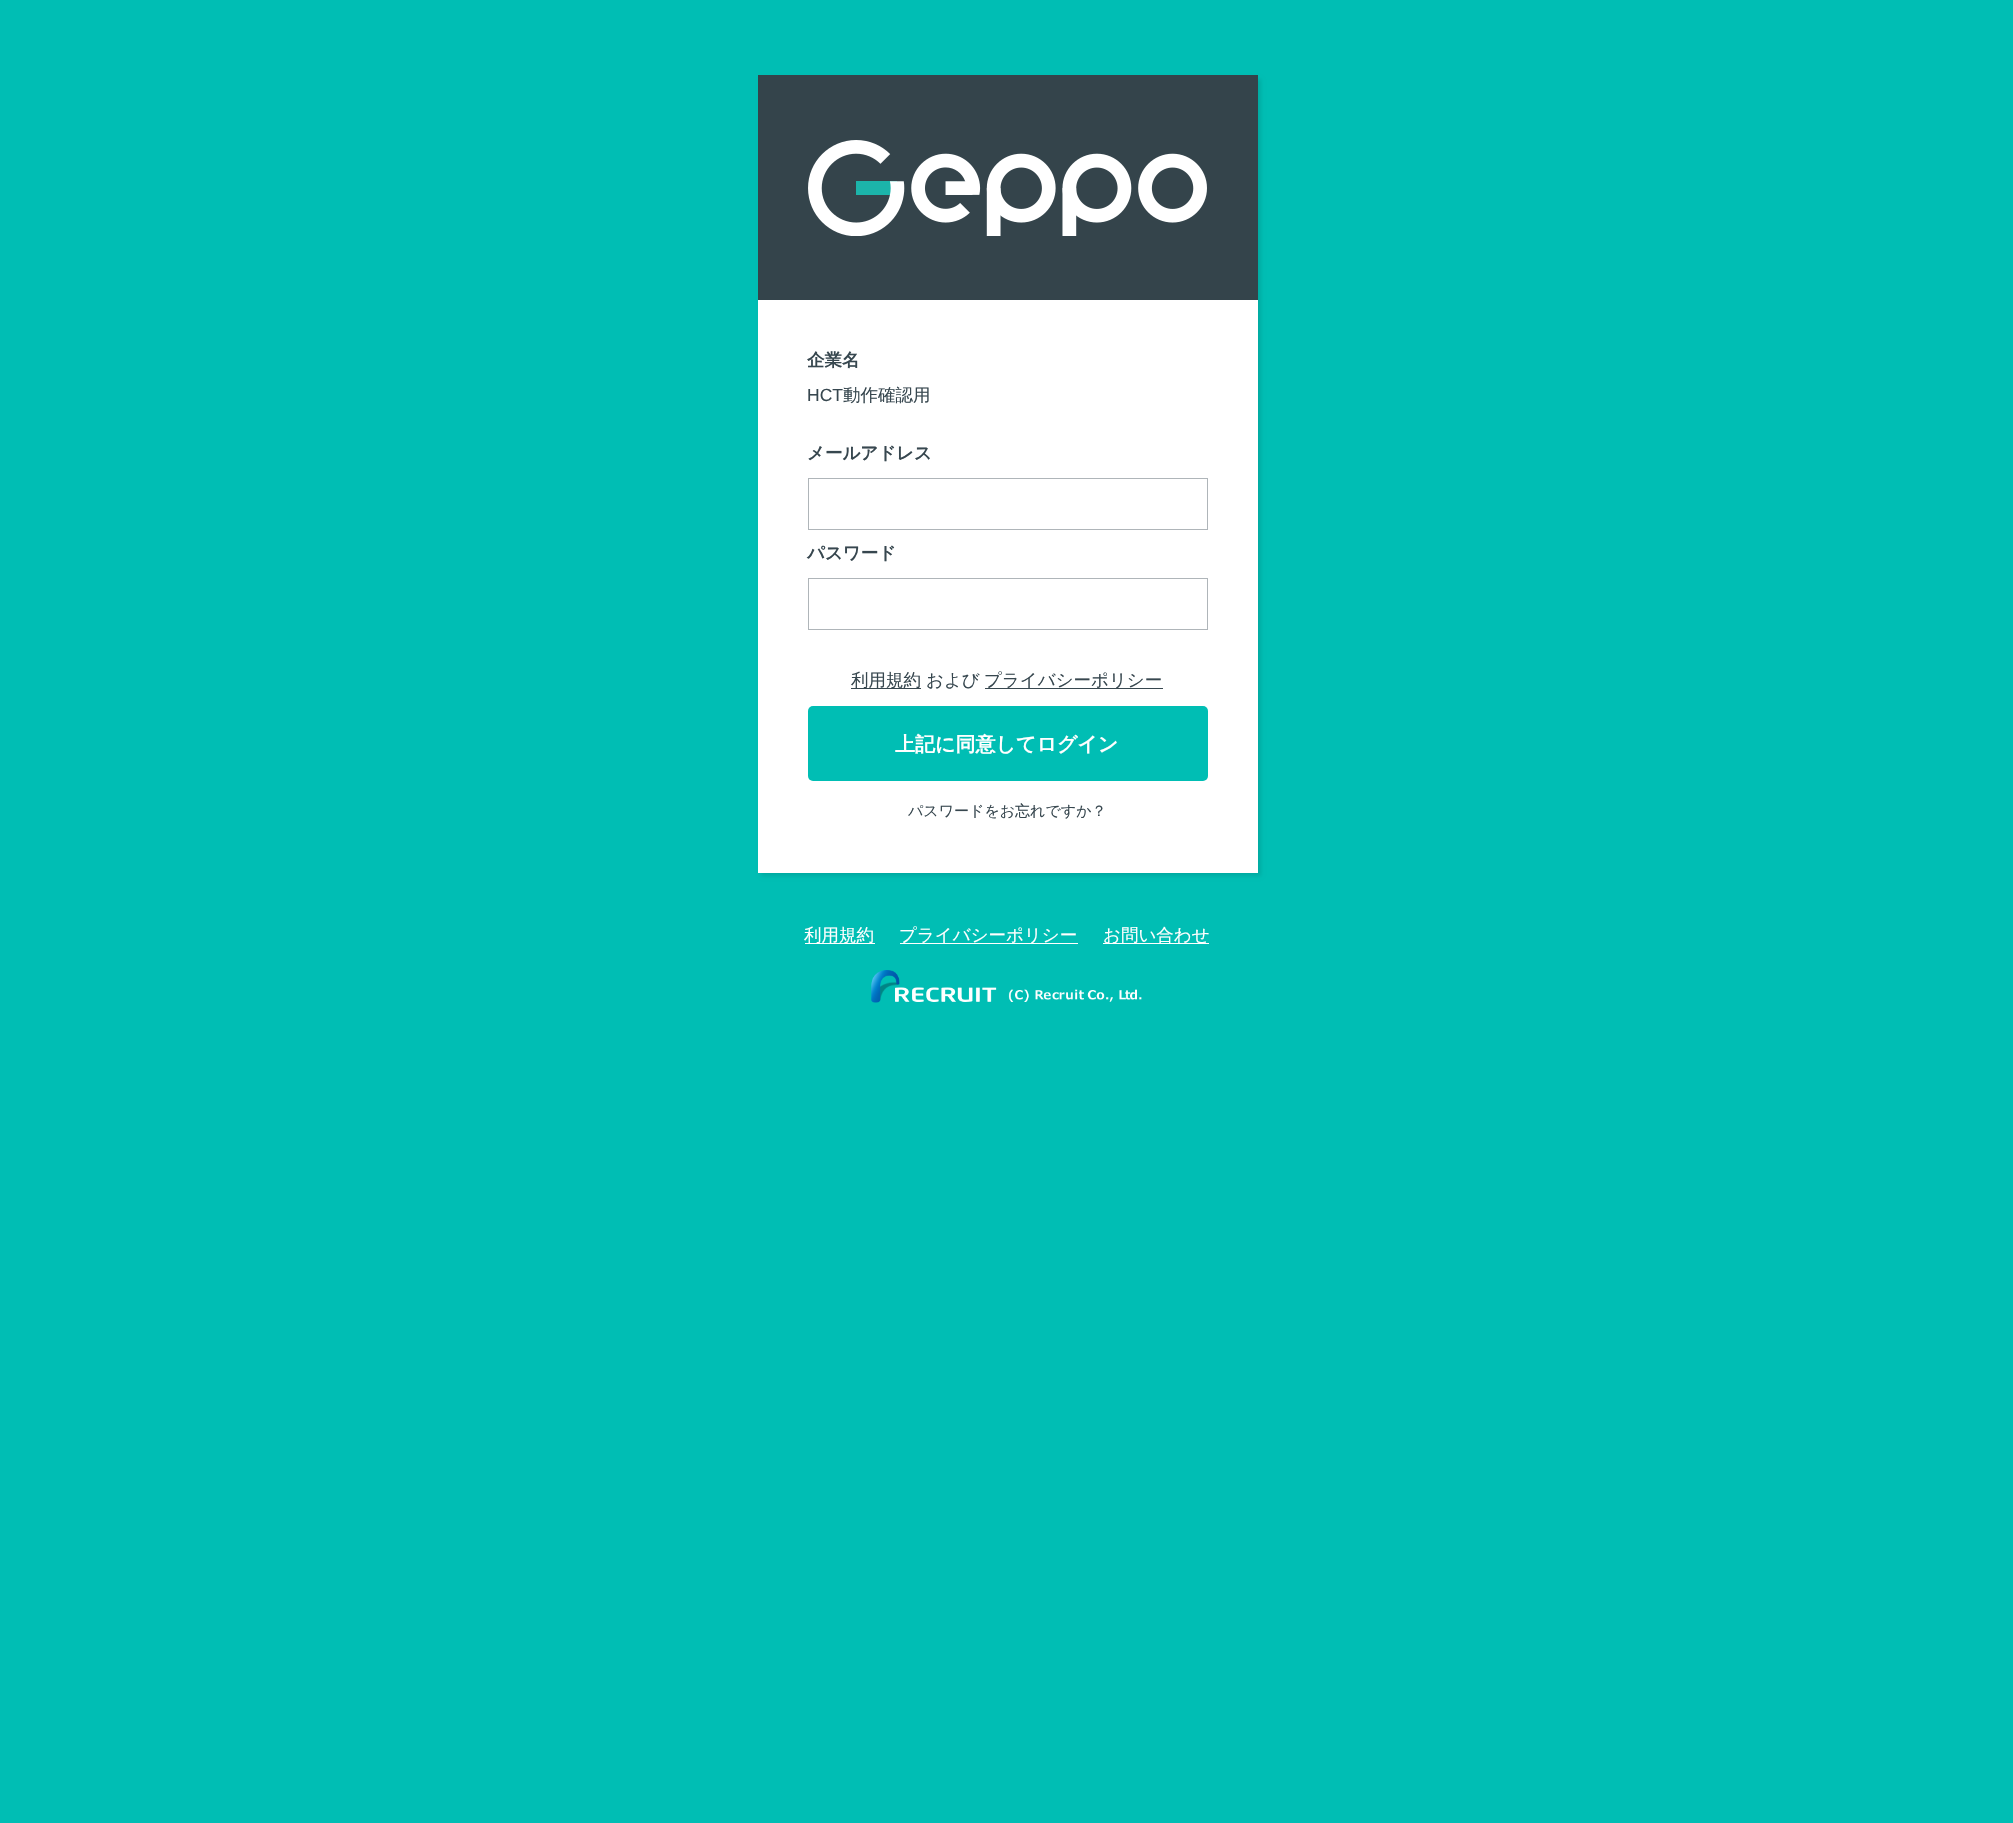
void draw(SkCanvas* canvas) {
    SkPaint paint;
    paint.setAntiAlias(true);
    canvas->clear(0xFF00BEB4);
    paint.setColor(0x1A000000);
    paint.setMaskFilter(SkMaskFilter::MakeBlur(kNormal_SkBlurStyle, 2));
    canvas->drawRect(SkRect::MakeXYWH(761, 79, 500, 797), paint);
    paint.setMaskFilter(nullptr);
    paint.setColor(0xFFFFFFFF);
    canvas->drawRect(SkRect::MakeXYWH(758, 300, 500, 573), paint);
    canvas->save();
    canvas->clipRect(SkRect::MakeXYWH(758, 75, 500, 225));
    paint.setColor(0xFF34444B);
    canvas->drawPath(SkPathBuilder().moveTo(547, 187).lineTo(1007, -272).lineTo(1466, 187).lineTo(1007, 647).close().detach(), paint);
    canvas->restore();
    canvas->drawImageRect(SkImages::DeferredFromEncodedData(SkData::MakeFromFileName("img1.png")), SkRect::MakeXYWH(808, 140, 399, 96), SkSamplingOptions());
    SkFont font1(fontMgr->matchFamilyStyle("WenQuanYi Zen Hei", SkFontStyle::Bold()), 17.5f);
    font1.setSubpixel(true);
    paint.setColor(0xFF37474F);
    canvas->drawString("企業名", 807, 366, font1, paint);
    SkFont font2(fontMgr->matchFamilyStyle("Liberation Sans", SkFontStyle::Normal()), 17.5f);
    font2.setSubpixel(true);
    canvas->drawString("HCT", 807, 401, font2, paint);
    SkFont font3(fontMgr->matchFamilyStyle("WenQuanYi Zen Hei", SkFontStyle(500, SkFontStyle::kNormal_Width, SkFontStyle::kUpright_Slant)), 17.5f);
    font3.setSubpixel(true);
    canvas->drawString("動作確認用", 843, 401, font3, paint);
    canvas->drawString("メールアドレス", 807, 459, font1, paint);
    paint.setStyle(SkPaint::kStroke_Style);
    paint.setStrokeWidth(1);
    paint.setColor(0xFFAFB5B9);
    canvas->drawRect(SkRect::MakeXYWH(808.5f, 478.5f, 399, 51), paint);
    paint.setStyle(SkPaint::kFill_Style);
    paint.setColor(0xFF37474F);
    canvas->drawString("パスワード", 807, 559, font1, paint);
    paint.setStyle(SkPaint::kStroke_Style);
    paint.setColor(0xFFAFB5B9);
    canvas->drawRect(SkRect::MakeXYWH(808.5f, 578.5f, 399, 51), paint);
    paint.setStyle(SkPaint::kFill_Style);
    paint.setColor(0xFF37474F);
    canvas->drawRect(SkRect::MakeXYWH(851, 688, 70, 1), paint);
    canvas->drawString("利用規約", 851, 686, font3, paint);
    canvas->drawString("および", 926, 686, font3, paint);
    canvas->drawRect(SkRect::MakeXYWH(985, 688, 178, 1), paint);
    canvas->drawString("プライバシーポリシー", 984, 686, font3, paint);
    paint.setColor(0xFF00BEB4);
    canvas->drawRoundRect(SkRect::MakeXYWH(808, 706, 400, 75), 5, 5, paint);
    SkFont font4(fontMgr->matchFamilyStyle("WenQuanYi Zen Hei", SkFontStyle::Bold()), 20);
    font4.setSubpixel(true);
    paint.setColor(0xFFFFFFFF);
    canvas->drawString("上記に同意してログイン", 895, 751, font4, paint);
    SkFont font5(fontMgr->matchFamilyStyle("WenQuanYi Zen Hei", SkFontStyle(500, SkFontStyle::kNormal_Width, SkFontStyle::kUpright_Slant)), 15);
    font5.setSubpixel(true);
    paint.setColor(0xFF37474F);
    canvas->drawString("パスワードをお忘れですか？", 908, 816, font5, paint);
    paint.setColor(0xFFFFFFFF);
    canvas->drawRect(SkRect::MakeXYWH(805, 943, 70, 1), paint);
    canvas->drawString("利用規約", 804, 941, font3, paint);
    canvas->drawRect(SkRect::MakeXYWH(900, 943, 178, 1), paint);
    canvas->drawString("プライバシーポリシー", 899, 941, font3, paint);
    canvas->drawRect(SkRect::MakeXYWH(1103, 943, 106, 1), paint);
    canvas->drawString("お問い合わせ", 1103, 941, font3, paint);
    canvas->drawImageRect(SkImages::DeferredFromEncodedData(SkData::MakeFromFileName("img2.png")), SkRect::MakeXYWH(871, 970, 271, 33), SkSamplingOptions());
}
